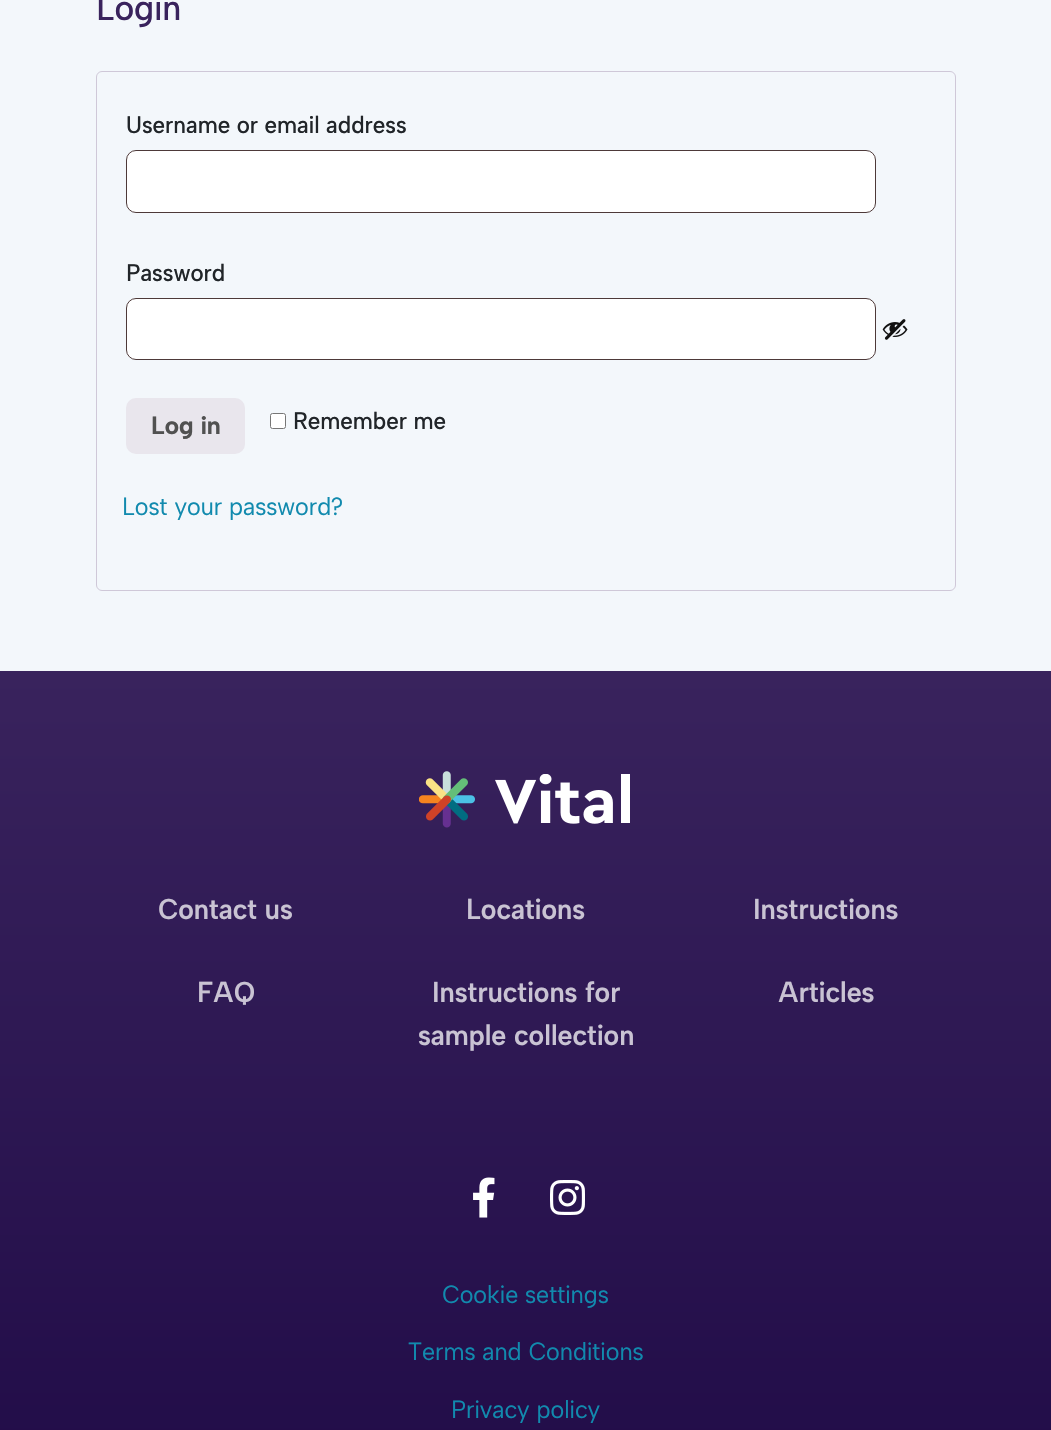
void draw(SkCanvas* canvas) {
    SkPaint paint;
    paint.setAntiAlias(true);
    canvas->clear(0xFFF3F7FB);
    SkFont font1(fontMgr->matchFamilyStyle("Albert Sans", SkFontStyle(500, SkFontStyle::kNormal_Width, SkFontStyle::kUpright_Slant)), 36);
    font1.setSubpixel(true);
    paint.setColor(0xFF39235D);
    canvas->drawString("Login", 96, 20, font1, paint);
    paint.setStyle(SkPaint::kStroke_Style);
    paint.setStrokeWidth(1);
    paint.setColor(0xFFCFC8D8);
    canvas->drawRoundRect(SkRect::MakeXYWH(96.5f, 71.5f, 859, 519), 5.5f, 5.5f, paint);
    SkFont font2(fontMgr->matchFamilyStyle("Albert Sans", SkFontStyle(500, SkFontStyle::kNormal_Width, SkFontStyle::kUpright_Slant)), 24);
    font2.setSubpixel(true);
    paint.setStyle(SkPaint::kFill_Style);
    paint.setColor(0xFF212529);
    canvas->drawString("Username or email address", 126, 133, font2, paint);
    paint.setColor(0xFFFFFFFF);
    canvas->drawRoundRect(SkRect::MakeXYWH(126, 150, 750, 63), 10, 10, paint);
    paint.setStyle(SkPaint::kStroke_Style);
    paint.setColor(0xCC200707);
    canvas->drawRoundRect(SkRect::MakeXYWH(126.5f, 150.5f, 749, 62), 9.5f, 9.5f, paint);
    paint.setStyle(SkPaint::kFill_Style);
    paint.setColor(0xFF212529);
    canvas->drawString("Password", 126, 281, font2, paint);
    paint.setColor(0xFFFFFFFF);
    canvas->drawRoundRect(SkRect::MakeXYWH(126, 298, 750, 62), 10, 10, paint);
    paint.setStyle(SkPaint::kStroke_Style);
    paint.setColor(0xCC200707);
    canvas->drawRoundRect(SkRect::MakeXYWH(126.5f, 298.5f, 749, 61), 9.5f, 9.5f, paint);
    canvas->drawImageRect(SkImages::DeferredFromEncodedData(SkData::MakeFromFileName("img1.png")), SkRect::MakeXYWH(882, 319, 26, 21), SkSamplingOptions());
    paint.setStyle(SkPaint::kFill_Style);
    paint.setColor(0xFFE9E6ED);
    canvas->drawRoundRect(SkRect::MakeXYWH(126, 398, 119, 56), 10, 10, paint);
    SkFont font3(fontMgr->matchFamilyStyle("Albert Sans", SkFontStyle::Bold()), 25);
    font3.setSubpixel(true);
    paint.setColor(0xFF515151);
    canvas->drawString("Log in", 151, 434, font3, paint);
    paint.setColor(0xFFFFFFFF);
    canvas->drawRoundRect(SkRect::MakeXYWH(270.5f, 413.5f, 15, 15), 2, 2, paint);
    paint.setStyle(SkPaint::kStroke_Style);
    paint.setColor(0xFF767676);
    canvas->drawRoundRect(SkRect::MakeXYWH(270.5f, 413.5f, 15, 15), 2, 2, paint);
    paint.setStyle(SkPaint::kFill_Style);
    paint.setColor(0xFF212529);
    canvas->drawString("Remember me", 293, 429, font2, paint);
    SkFont font4(fontMgr->matchFamilyStyle("Albert Sans", SkFontStyle::Normal()), 25);
    font4.setSubpixel(true);
    paint.setColor(0xFF118AAE);
    canvas->drawString("Lost your password?", 122, 515, font4, paint);
    {
        const SkColor colors[] = {0xFF39235D, 0xFF180340};
        const float stops[] = {0, 1};
        const SkPoint ends[] = {{526, 671}, {526, 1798}};
        paint.setShader(SkGradientShader::MakeLinear(ends, colors, stops, 2, SkTileMode::kClamp));
        paint.setAlpha(255);
    }
    canvas->drawRect(SkRect::MakeXYWH(0, 671, 1051, 759), paint);
    canvas->drawImageRect(SkImages::DeferredFromEncodedData(SkData::MakeFromFileName("img2.png")), SkRect::MakeXYWH(419, 771, 56, 57), SkSamplingOptions());
    canvas->drawImageRect(SkImages::DeferredFromEncodedData(SkData::MakeFromFileName("img3.png")), SkRect::MakeXYWH(495, 774, 135, 50), SkSamplingOptions());
    SkFont font5(fontMgr->matchFamilyStyle("Albert Sans", SkFontStyle(600, SkFontStyle::kNormal_Width, SkFontStyle::kUpright_Slant)), 28.75f);
    font5.setSubpixel(true);
    paint.setShader(nullptr);
    paint.setColor(0xFFC9C3D3);
    canvas->drawString("Contact us", 158, 919, font5, paint);
    canvas->drawString("FAQ", 197, 1002, font5, paint);
    canvas->drawString("Locations", 466, 919, font5, paint);
    canvas->drawString("Instructions for", 432, 1002, font5, paint);
    canvas->drawString("sample collection", 418, 1045, font5, paint);
    canvas->drawString("Instructions", 753, 919, font5, paint);
    canvas->drawString("Articles", 778, 1002, font5, paint);
    canvas->drawImageRect(SkImages::DeferredFromEncodedData(SkData::MakeFromFileName("img4.png")), SkRect::MakeXYWH(473, 1177, 22, 41), SkSamplingOptions());
    canvas->drawImageRect(SkImages::DeferredFromEncodedData(SkData::MakeFromFileName("img5.png")), SkRect::MakeXYWH(550, 1180, 35, 35), SkSamplingOptions());
    paint.setColor(0xFF118AAE);
    canvas->drawString("Cookie settings", 442, 1303, font4, paint);
    canvas->drawString("Terms and Conditions", 408, 1360, font4, paint);
    canvas->drawString("Privacy policy", 451, 1418, font4, paint);
}
